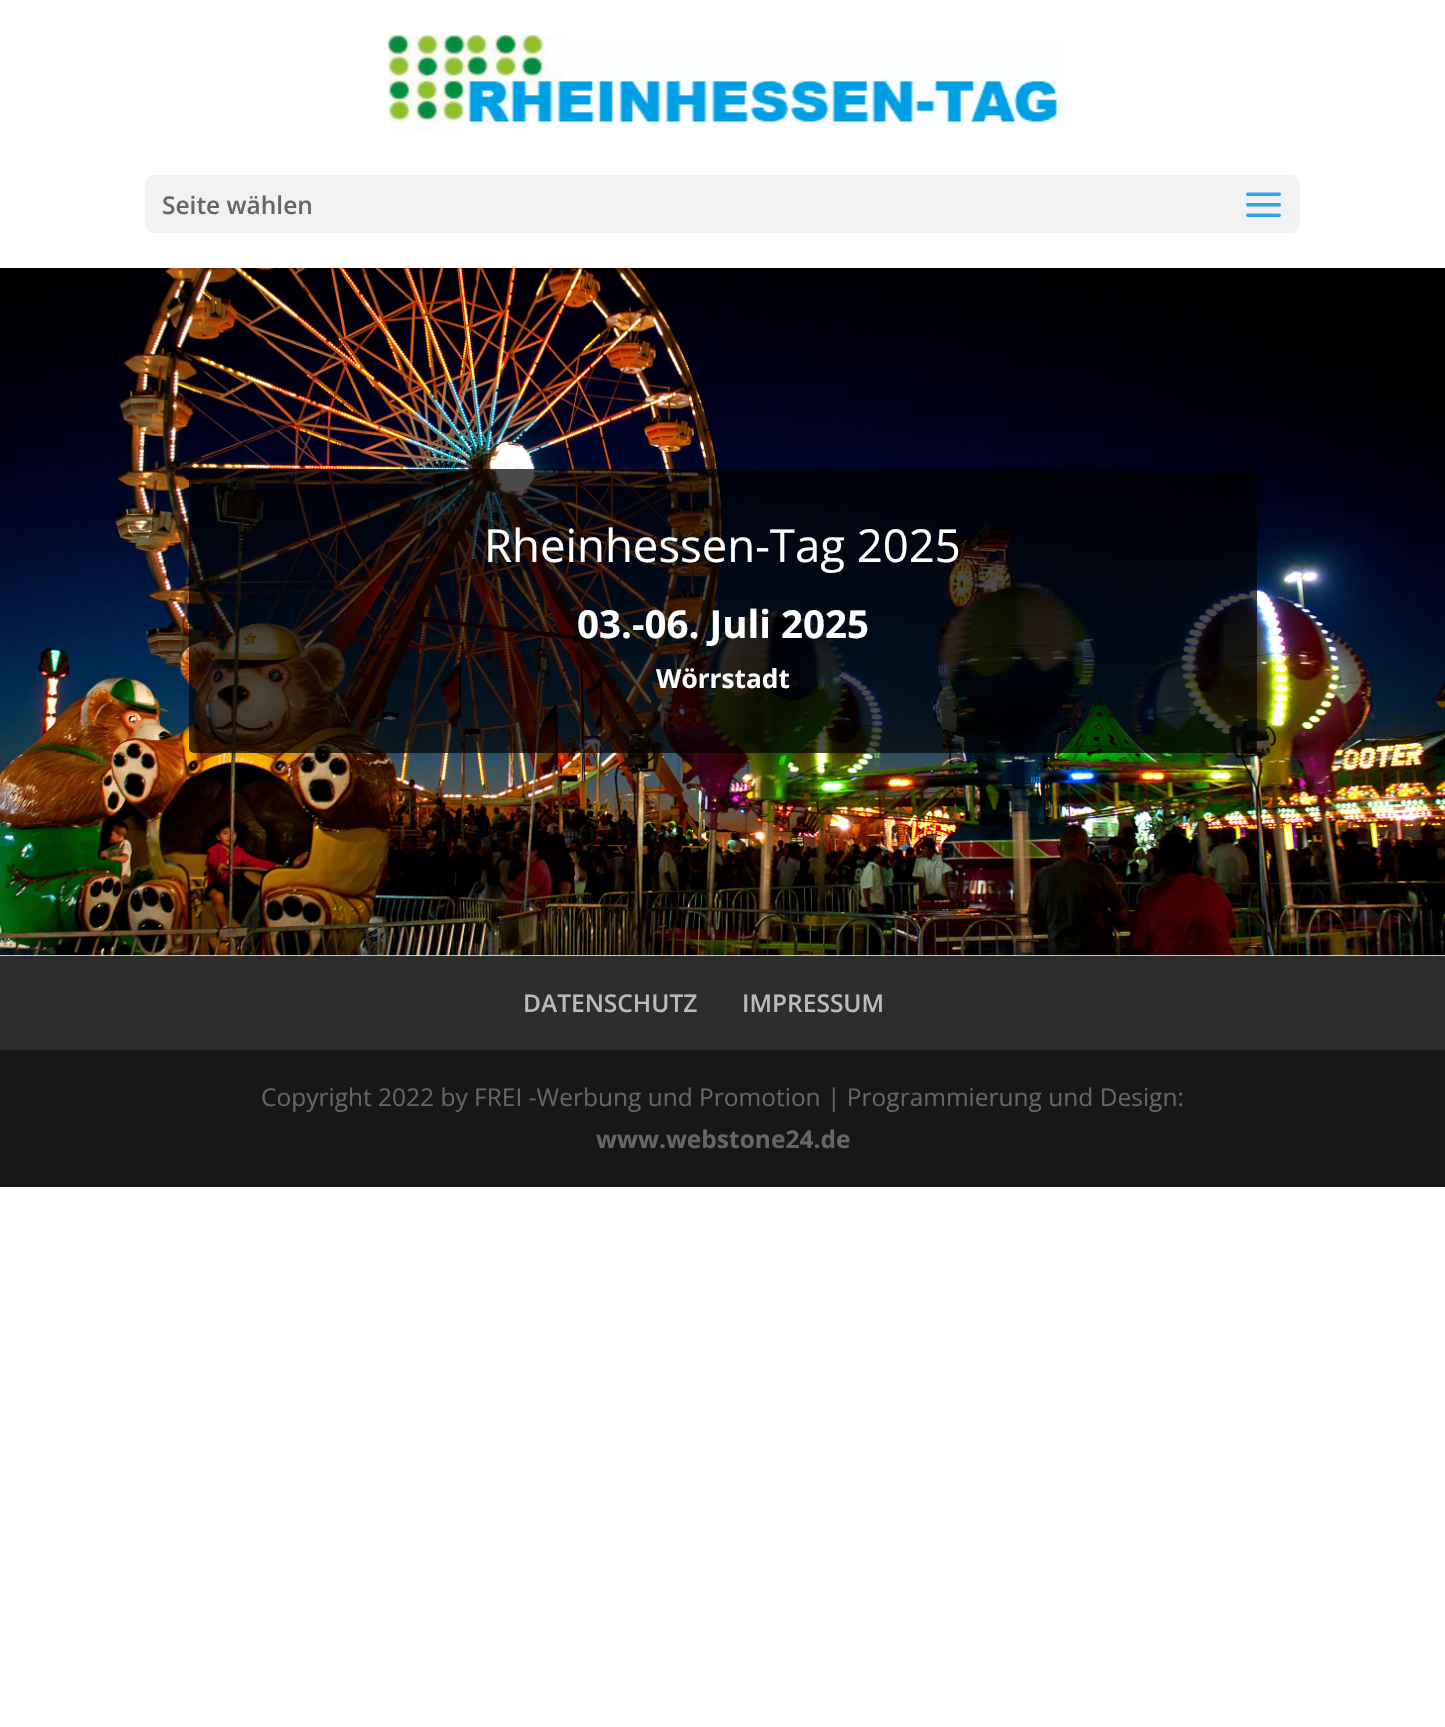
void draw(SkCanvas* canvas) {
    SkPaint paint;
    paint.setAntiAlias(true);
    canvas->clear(0xFFFFFFFF);
    canvas->drawImageRect(SkImages::DeferredFromEncodedData(SkData::MakeFromFileName("img3.png")), SkRect::MakeXYWH(0, 268, 1445, 688), SkSamplingOptions());
    paint.setColor(0x1A000000);
    canvas->drawPath(SkPathBuilder().moveTo(0, 268).lineTo(0, 270).lineTo(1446, 270).lineTo(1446, 2).lineTo(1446, 268).close().detach(), paint);
    canvas->drawImageRect(SkImages::DeferredFromEncodedData(SkData::MakeFromFileName("img1.png")), SkRect::MakeXYWH(387, 35, 677, 98), SkSamplingOptions());
    paint.setColor(0xFFF2F2F2);
    canvas->drawRoundRect(SkRect::MakeXYWH(145, 175, 1155, 58), 9, 9, paint);
    SkFont font1(fontMgr->matchFamilyStyle("Open Sans", SkFontStyle(600, SkFontStyle::kNormal_Width, SkFontStyle::kUpright_Slant)), 24.5f);
    font1.setSubpixel(true);
    paint.setColor(0xFF666666);
    canvas->drawString("Seite wählen", 162, 214, font1, paint);
    canvas->drawImageRect(SkImages::DeferredFromEncodedData(SkData::MakeFromFileName("img2.png")), SkRect::MakeXYWH(1246, 192, 35, 25), SkSamplingOptions());
    paint.setColor(0xB5000000);
    canvas->drawRoundRect(SkRect::MakeXYWH(189, 469, 1068, 284), 5, 5, paint);
    SkFont font2(fontMgr->matchFamilyStyle("Open Sans", SkFontStyle::Normal()), 45.5f);
    font2.setSubpixel(true);
    paint.setColor(0xFFFFFFFF);
    canvas->drawString("Rheinhessen-Tag 2025", 484, 562, font2, paint);
    SkFont font3(fontMgr->matchFamilyStyle("Open Sans", SkFontStyle::Bold()), 38.5f);
    font3.setSubpixel(true);
    canvas->drawString("03.-06. Juli 2025", 577, 638, font3, paint);
    SkFont font4(fontMgr->matchFamilyStyle("Open Sans", SkFontStyle::Bold()), 26.25f);
    font4.setSubpixel(true);
    canvas->drawString("Wörrstadt", 656, 688, font4, paint);
    paint.setColor(0xFF2D2D2D);
    canvas->drawRect(SkRect::MakeXYWH(0, 956, 1445, 94), paint);
    paint.setColor(0xFFBBBBBB);
    canvas->drawString("DATENSCHUTZ", 523, 1012, font1, paint);
    canvas->drawString("IMPRESSUM", 742, 1012, font1, paint);
    paint.setColor(0xFF171717);
    canvas->drawRect(SkRect::MakeXYWH(0, 1050, 1445, 137), paint);
    SkFont font5(fontMgr->matchFamilyStyle("Open Sans", SkFontStyle::Normal()), 24.5f);
    font5.setSubpixel(true);
    paint.setColor(0xFF666666);
    canvas->drawString("Copyright 2022 by FREI -Werbung und Promotion | Programmierung und Design:", 261, 1106, font5, paint);
    SkFont font6(fontMgr->matchFamilyStyle("Open Sans", SkFontStyle::Bold()), 24.5f);
    font6.setSubpixel(true);
    canvas->drawString("www.webstone24.de", 596, 1148, font6, paint);
}
